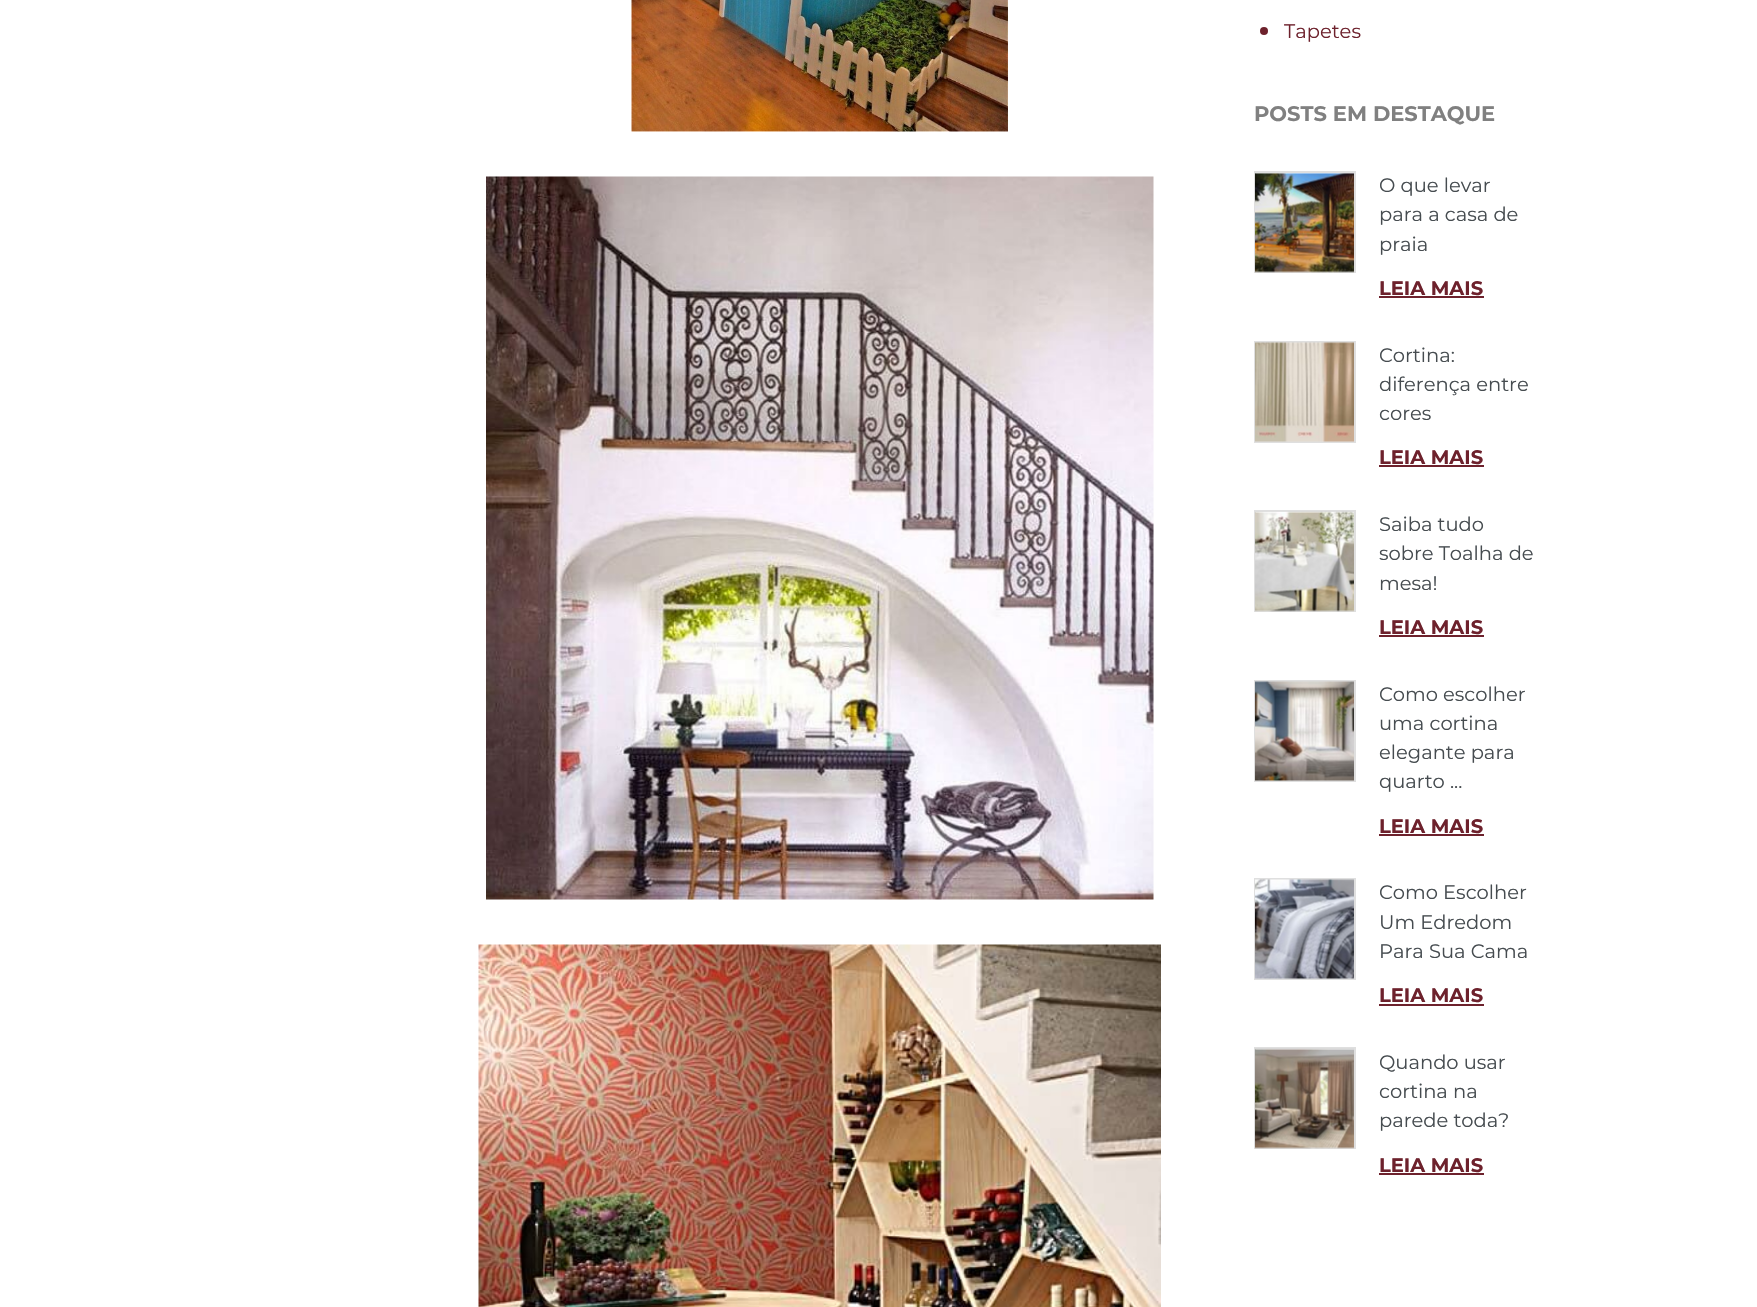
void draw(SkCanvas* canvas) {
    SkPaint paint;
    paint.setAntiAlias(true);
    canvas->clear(0xFFFFFFFF);
    canvas->drawImageRect(SkImages::DeferredFromEncodedData(SkData::MakeFromFileName("img1.png")), SkRect::MakeXYWH(631, 0, 377, 132), SkSamplingOptions());
    canvas->drawImageRect(SkImages::DeferredFromEncodedData(SkData::MakeFromFileName("img2.png")), SkRect::MakeXYWH(486, 176, 668, 724), SkSamplingOptions());
    canvas->drawImageRect(SkImages::DeferredFromEncodedData(SkData::MakeFromFileName("img3.png")), SkRect::MakeXYWH(478, 944, 683, 363), SkSamplingOptions());
    paint.setColor(0xFF6D212C);
    canvas->drawCircle(1264, 31, 4, paint);
    SkFont font1(fontMgr->matchFamilyStyle("Montserrat", SkFontStyle::Normal()), 19.5f);
    font1.setSubpixel(true);
    canvas->drawString("Tapetes", 1284, 38, font1, paint);
    SkFont font2(fontMgr->matchFamilyStyle("Montserrat", SkFontStyle::Bold()), 21);
    font2.setSubpixel(true);
    paint.setColor(0xFF808080);
    canvas->drawString("POSTS EM DESTAQUE", 1254, 121, font2, paint);
    paint.setStyle(SkPaint::kStroke_Style);
    paint.setStrokeWidth(2);
    paint.setColor(0xFFDFDFDF);
    canvas->drawRect(SkRect::MakeXYWH(1255, 172, 100, 100), paint);
    canvas->drawImageRect(SkImages::DeferredFromEncodedData(SkData::MakeFromFileName("img4.png")), SkRect::MakeXYWH(1255, 173, 99, 100), SkSamplingOptions());
    paint.setStyle(SkPaint::kFill_Style);
    paint.setColor(0xFF464C50);
    canvas->drawString("O que levar", 1379, 192, font1, paint);
    canvas->drawString("para a casa de", 1379, 221, font1, paint);
    canvas->drawString("praia", 1379, 251, font1, paint);
    SkFont font3(fontMgr->matchFamilyStyle("Montserrat", SkFontStyle::Bold()), 19.5f);
    font3.setSubpixel(true);
    paint.setColor(0xFF6D212C);
    canvas->drawString("LEIA MAIS", 1379, 295, font3, paint);
    canvas->drawRect(SkRect::MakeXYWH(1379, 296, 105, 2), paint);
    paint.setStyle(SkPaint::kStroke_Style);
    paint.setColor(0xFFDFDFDF);
    canvas->drawRect(SkRect::MakeXYWH(1255, 342, 100, 100), paint);
    canvas->drawImageRect(SkImages::DeferredFromEncodedData(SkData::MakeFromFileName("img5.png")), SkRect::MakeXYWH(1255, 342, 99, 100), SkSamplingOptions());
    paint.setStyle(SkPaint::kFill_Style);
    paint.setColor(0xFF464C50);
    canvas->drawString("Cortina:", 1379, 362, font1, paint);
    canvas->drawString("diferença entre", 1379, 391, font1, paint);
    canvas->drawString("cores", 1379, 420, font1, paint);
    paint.setColor(0xFF6D212C);
    canvas->drawString("LEIA MAIS", 1379, 464, font3, paint);
    canvas->drawRect(SkRect::MakeXYWH(1379, 465, 105, 2), paint);
    paint.setStyle(SkPaint::kStroke_Style);
    paint.setColor(0xFFDFDFDF);
    canvas->drawRect(SkRect::MakeXYWH(1255, 511, 100, 100), paint);
    canvas->drawImageRect(SkImages::DeferredFromEncodedData(SkData::MakeFromFileName("img6.png")), SkRect::MakeXYWH(1255, 511, 99, 101), SkSamplingOptions());
    paint.setStyle(SkPaint::kFill_Style);
    paint.setColor(0xFF464C50);
    canvas->drawString("Saiba tudo", 1379, 531, font1, paint);
    canvas->drawString("sobre Toalha de", 1379, 560, font1, paint);
    canvas->drawString("mesa!", 1379, 590, font1, paint);
    paint.setColor(0xFF6D212C);
    canvas->drawString("LEIA MAIS", 1379, 634, font3, paint);
    canvas->drawRect(SkRect::MakeXYWH(1379, 635, 105, 2), paint);
    paint.setStyle(SkPaint::kStroke_Style);
    paint.setColor(0xFFDFDFDF);
    canvas->drawRect(SkRect::MakeXYWH(1255, 681, 100, 100), paint);
    canvas->drawImageRect(SkImages::DeferredFromEncodedData(SkData::MakeFromFileName("img7.png")), SkRect::MakeXYWH(1255, 681, 99, 100), SkSamplingOptions());
    paint.setStyle(SkPaint::kFill_Style);
    paint.setColor(0xFF464C50);
    canvas->drawString("Como escolher", 1379, 701, font1, paint);
    canvas->drawString("uma cortina", 1379, 730, font1, paint);
    canvas->drawString("elegante para", 1379, 759, font1, paint);
    canvas->drawString("quarto ...", 1379, 788, font1, paint);
    paint.setColor(0xFF6D212C);
    canvas->drawString("LEIA MAIS", 1379, 833, font3, paint);
    canvas->drawRect(SkRect::MakeXYWH(1379, 834, 105, 2), paint);
    paint.setStyle(SkPaint::kStroke_Style);
    paint.setColor(0xFFDFDFDF);
    canvas->drawRect(SkRect::MakeXYWH(1255, 879, 100, 100), paint);
    canvas->drawImageRect(SkImages::DeferredFromEncodedData(SkData::MakeFromFileName("img8.png")), SkRect::MakeXYWH(1255, 879, 99, 100), SkSamplingOptions());
    paint.setStyle(SkPaint::kFill_Style);
    paint.setColor(0xFF464C50);
    canvas->drawString("Como Escolher", 1379, 899, font1, paint);
    canvas->drawString("Um Edredom", 1379, 929, font1, paint);
    canvas->drawString("Para Sua Cama", 1379, 958, font1, paint);
    paint.setColor(0xFF6D212C);
    canvas->drawString("LEIA MAIS", 1379, 1002, font3, paint);
    canvas->drawRect(SkRect::MakeXYWH(1379, 1004, 105, 2), paint);
    paint.setStyle(SkPaint::kStroke_Style);
    paint.setColor(0xFFDFDFDF);
    canvas->drawRect(SkRect::MakeXYWH(1255, 1048, 100, 100), paint);
    canvas->drawImageRect(SkImages::DeferredFromEncodedData(SkData::MakeFromFileName("img9.png")), SkRect::MakeXYWH(1255, 1048, 99, 101), SkSamplingOptions());
    paint.setStyle(SkPaint::kFill_Style);
    paint.setColor(0xFF464C50);
    canvas->drawString("Quando usar", 1379, 1069, font1, paint);
    canvas->drawString("cortina na", 1379, 1098, font1, paint);
    canvas->drawString("parede toda?", 1379, 1127, font1, paint);
    paint.setColor(0xFF6D212C);
    canvas->drawString("LEIA MAIS", 1379, 1172, font3, paint);
    canvas->drawRect(SkRect::MakeXYWH(1379, 1173, 105, 2), paint);
}
